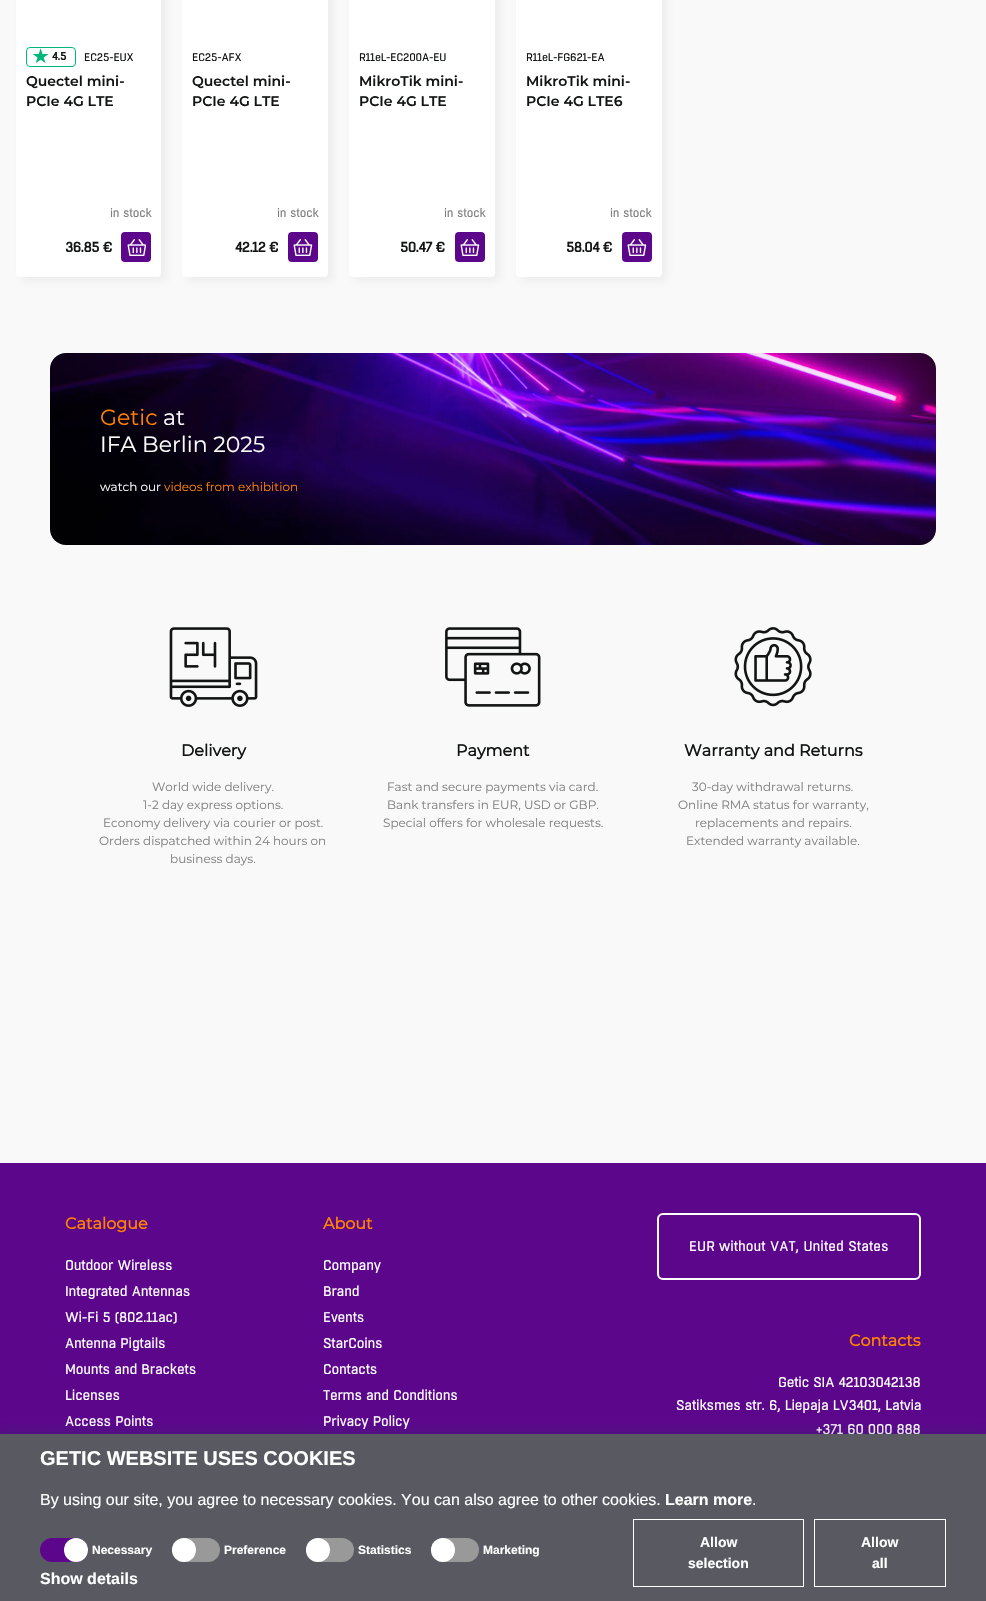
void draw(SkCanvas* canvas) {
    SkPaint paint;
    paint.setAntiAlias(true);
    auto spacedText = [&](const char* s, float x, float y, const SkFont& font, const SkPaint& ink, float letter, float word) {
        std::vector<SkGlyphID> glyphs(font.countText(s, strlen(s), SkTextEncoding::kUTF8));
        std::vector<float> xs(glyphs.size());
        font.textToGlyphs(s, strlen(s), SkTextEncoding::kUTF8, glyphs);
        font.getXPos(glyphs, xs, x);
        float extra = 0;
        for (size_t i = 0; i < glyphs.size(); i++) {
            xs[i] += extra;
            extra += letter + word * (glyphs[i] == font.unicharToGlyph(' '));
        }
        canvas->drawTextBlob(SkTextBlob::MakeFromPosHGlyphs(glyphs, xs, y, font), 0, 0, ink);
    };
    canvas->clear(0xFFF9F9F9);
    paint.setColor(0x0D131515);
    paint.setMaskFilter(SkMaskFilter::MakeBlur(kNormal_SkBlurStyle, 5));
    canvas->drawRoundRect(SkRect::MakeXYWH(21, -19, 145, 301), 4, 4, paint);
    paint.setMaskFilter(nullptr);
    paint.setColor(0xFFFFFFFF);
    canvas->drawRoundRect(SkRect::MakeXYWH(16, -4, 145, 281), 4, 4, paint);
    paint.setStyle(SkPaint::kStroke_Style);
    paint.setStrokeWidth(1);
    paint.setColor(0xFF00B67A);
    canvas->drawRoundRect(SkRect::MakeXYWH(26.5f, 47.5f, 49, 19), 3.5f, 3.5f, paint);
    canvas->drawImageRect(SkImages::DeferredFromEncodedData(SkData::MakeFromFileName("img1.png")), SkRect::MakeXYWH(32, 48, 17, 16), SkSamplingOptions());
    SkFont font1(fontMgr->matchFamilyStyle("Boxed", SkFontStyle::Bold()), 11);
    font1.setSubpixel(true);
    paint.setStyle(SkPaint::kFill_Style);
    paint.setColor(0xFF131515);
    spacedText("4.5", 52, 60, font1, paint, -0.2f, 0);
    SkFont font2(fontMgr->matchFamilyStyle("Boxed", SkFontStyle::Normal()), 11);
    font2.setSubpixel(true);
    spacedText("EC25-EUX", 84, 61, font2, paint, -0.2f, 0);
    SkFont font3(fontMgr->matchFamilyStyle("Montserrat", SkFontStyle(600, SkFontStyle::kNormal_Width, SkFontStyle::kUpright_Slant)), 14);
    font3.setSubpixel(true);
    canvas->drawString("Quectel mini-", 26, 86, font3, paint);
    canvas->drawString("PCIe 4G LTE", 26, 106, font3, paint);
    SkFont font4(fontMgr->matchFamilyStyle("Boxed", SkFontStyle::Normal()), 12);
    font4.setSubpixel(true);
    paint.setColor(0xFF818181);
    spacedText("in stock", 110, 217, font4, paint, -0.2f, 0);
    SkFont font5(fontMgr->matchFamilyStyle("Boxed", SkFontStyle::Bold()), 14);
    font5.setSubpixel(true);
    paint.setColor(0xFF131515);
    spacedText("36.85 €", 65, 252, font5, paint, -0.5f, 0);
    paint.setColor(0xFF5C068C);
    canvas->drawRoundRect(SkRect::MakeXYWH(121, 232, 30, 30), 4, 4, paint);
    canvas->drawImageRect(SkImages::DeferredFromEncodedData(SkData::MakeFromFileName("img2.png")), SkRect::MakeXYWH(127, 239, 19, 17), SkSamplingOptions());
    paint.setColor(0x0D131515);
    paint.setMaskFilter(SkMaskFilter::MakeBlur(kNormal_SkBlurStyle, 5));
    canvas->drawRoundRect(SkRect::MakeXYWH(187, -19, 146, 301), 4, 4, paint);
    paint.setMaskFilter(nullptr);
    paint.setColor(0xFFFFFFFF);
    canvas->drawRoundRect(SkRect::MakeXYWH(182, -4, 146, 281), 4, 4, paint);
    paint.setColor(0xFF131515);
    spacedText("EC25-AFX", 192, 61, font2, paint, -0.2f, 0);
    canvas->drawString("Quectel mini-", 192, 86, font3, paint);
    canvas->drawString("PCIe 4G LTE", 192, 106, font3, paint);
    paint.setColor(0xFF818181);
    spacedText("in stock", 277, 217, font4, paint, -0.2f, 0);
    paint.setColor(0xFF131515);
    spacedText("42.12 €", 235, 252, font5, paint, -0.5f, 0);
    paint.setColor(0xFF5C068C);
    canvas->drawRoundRect(SkRect::MakeXYWH(288, 232, 30, 30), 4, 4, paint);
    canvas->drawImageRect(SkImages::DeferredFromEncodedData(SkData::MakeFromFileName("img3.png")), SkRect::MakeXYWH(293, 239, 20, 17), SkSamplingOptions());
    paint.setColor(0x0D131515);
    paint.setMaskFilter(SkMaskFilter::MakeBlur(kNormal_SkBlurStyle, 5));
    canvas->drawRoundRect(SkRect::MakeXYWH(354, -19, 146, 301), 4, 4, paint);
    paint.setMaskFilter(nullptr);
    paint.setColor(0xFFFFFFFF);
    canvas->drawRoundRect(SkRect::MakeXYWH(349, -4, 146, 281), 4, 4, paint);
    paint.setColor(0xFF131515);
    spacedText("R11eL-EC200A-EU", 359, 61, font2, paint, -0.2f, 0);
    canvas->drawString("MikroTik mini-", 359, 86, font3, paint);
    canvas->drawString("PCIe 4G LTE", 359, 106, font3, paint);
    paint.setColor(0xFF818181);
    spacedText("in stock", 444, 217, font4, paint, -0.2f, 0);
    paint.setColor(0xFF131515);
    spacedText("50.47 €", 400, 252, font5, paint, -0.5f, 0);
    paint.setColor(0xFF5C068C);
    canvas->drawRoundRect(SkRect::MakeXYWH(455, 232, 30, 30), 4, 4, paint);
    canvas->drawImageRect(SkImages::DeferredFromEncodedData(SkData::MakeFromFileName("img3.png")), SkRect::MakeXYWH(460, 239, 20, 17), SkSamplingOptions());
    paint.setColor(0x0D131515);
    paint.setMaskFilter(SkMaskFilter::MakeBlur(kNormal_SkBlurStyle, 5));
    canvas->drawRoundRect(SkRect::MakeXYWH(521, -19, 146, 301), 4, 4, paint);
    paint.setMaskFilter(nullptr);
    paint.setColor(0xFFFFFFFF);
    canvas->drawRoundRect(SkRect::MakeXYWH(516, -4, 146, 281), 4, 4, paint);
    paint.setColor(0xFF131515);
    spacedText("R11eL-FG621-EA", 526, 61, font2, paint, -0.2f, 0);
    canvas->drawString("MikroTik mini-", 526, 86, font3, paint);
    canvas->drawString("PCIe 4G LTE6", 526, 106, font3, paint);
    paint.setColor(0xFF818181);
    spacedText("in stock", 610, 217, font4, paint, -0.2f, 0);
    paint.setColor(0xFF131515);
    spacedText("58.04 €", 566, 252, font5, paint, -0.5f, 0);
    paint.setColor(0xFF5C068C);
    canvas->drawRoundRect(SkRect::MakeXYWH(622, 232, 30, 30), 4, 4, paint);
    canvas->drawImageRect(SkImages::DeferredFromEncodedData(SkData::MakeFromFileName("img3.png")), SkRect::MakeXYWH(627, 239, 20, 17), SkSamplingOptions());
    canvas->drawImageRect(SkImages::DeferredFromEncodedData(SkData::MakeFromFileName("img4.png")), SkRect::MakeXYWH(50, 353, 886, 192), SkSamplingOptions());
    SkFont font6(fontMgr->matchFamilyStyle("Montserrat", SkFontStyle::Normal()), 22);
    font6.setSubpixel(true);
    paint.setColor(0xFFFF8200);
    canvas->drawString("Getic", 100, 425, font6, paint);
    paint.setColor(0xFFFFFFFF);
    canvas->drawString("at", 163, 425, font6, paint);
    canvas->drawString("IFA Berlin 2025", 100, 452, font6, paint);
    SkFont font7(fontMgr->matchFamilyStyle("Montserrat", SkFontStyle::Normal()), 12);
    font7.setSubpixel(true);
    canvas->drawString("watch our", 100, 491, font7, paint);
    paint.setColor(0xFFFF8200);
    canvas->drawString("videos from exhibition", 164, 491, font7, paint);
    canvas->drawImageRect(SkImages::DeferredFromEncodedData(SkData::MakeFromFileName("img5.png")), SkRect::MakeXYWH(169, 627, 89, 80), SkSamplingOptions());
    SkFont font8(fontMgr->matchFamilyStyle("Montserrat", SkFontStyle::Bold()), 16);
    font8.setSubpixel(true);
    paint.setColor(0xFF131515);
    canvas->drawString("Delivery", 181, 756, font8, paint);
    paint.setColor(0xFF818181);
    canvas->drawString("World wide delivery.", 152, 791, font7, paint);
    canvas->drawString("1-2 day express options.", 143, 809, font7, paint);
    canvas->drawString("Economy delivery via courier or post.", 103, 827, font7, paint);
    canvas->drawString("Orders dispatched within 24 hours on", 99, 845, font7, paint);
    canvas->drawString("business days.", 170, 863, font7, paint);
    canvas->drawImageRect(SkImages::DeferredFromEncodedData(SkData::MakeFromFileName("img6.png")), SkRect::MakeXYWH(445, 627, 96, 80), SkSamplingOptions());
    paint.setColor(0xFF131515);
    canvas->drawString("Payment", 456, 756, font8, paint);
    paint.setColor(0xFF818181);
    canvas->drawString("Fast and secure payments via card.", 387, 791, font7, paint);
    canvas->drawString("Bank transfers in EUR, USD or GBP.", 387, 809, font7, paint);
    canvas->drawString("Special offers for wholesale requests.", 383, 827, font7, paint);
    canvas->drawImageRect(SkImages::DeferredFromEncodedData(SkData::MakeFromFileName("img7.png")), SkRect::MakeXYWH(734, 627, 78, 80), SkSamplingOptions());
    paint.setColor(0xFF131515);
    canvas->drawString("Warranty and Returns", 684, 756, font8, paint);
    paint.setColor(0xFF818181);
    canvas->drawString("30-day withdrawal returns.", 692, 791, font7, paint);
    canvas->drawString("Online RMA status for warranty,", 678, 809, font7, paint);
    canvas->drawString("replacements and repairs.", 695, 827, font7, paint);
    canvas->drawString("Extended warranty available.", 686, 845, font7, paint);
    paint.setColor(0xFF5C068C);
    canvas->drawRect(SkRect::MakeXYWH(0, 1163, 986, 271), paint);
    paint.setColor(0xFFFF8200);
    canvas->drawString("Catalogue", 65, 1229, font8, paint);
    SkFont font9(fontMgr->matchFamilyStyle("Boxed", SkFontStyle::Normal()), 14);
    font9.setSubpixel(true);
    paint.setColor(0xFFFFFFFF);
    spacedText("Outdoor Wireless", 65, 1270, font9, paint, -0.2f, 0);
    spacedText("Integrated Antennas", 65, 1296, font9, paint, -0.2f, 0);
    spacedText("Wi-Fi 5 (802.11ac)", 65, 1322, font9, paint, -0.2f, 0);
    spacedText("Antenna Pigtails", 65, 1348, font9, paint, -0.2f, 0);
    spacedText("Mounts and Brackets", 65, 1374, font9, paint, -0.2f, 0);
    spacedText("Licenses", 65, 1400, font9, paint, -0.2f, 0);
    spacedText("Access Points", 65, 1426, font9, paint, -0.2f, 0);
    paint.setColor(0xFFFF8200);
    canvas->drawString("About", 323, 1229, font8, paint);
    paint.setColor(0xFFFFFFFF);
    spacedText("Company", 323, 1270, font9, paint, -0.2f, 0);
    spacedText("Brand", 323, 1296, font9, paint, -0.2f, 0);
    spacedText("Events", 323, 1322, font9, paint, -0.2f, 0);
    spacedText("StarCoins", 323, 1348, font9, paint, -0.2f, 0);
    spacedText("Contacts", 323, 1374, font9, paint, -0.2f, 0);
    spacedText("Terms and Conditions", 323, 1400, font9, paint, -0.2f, 0);
    spacedText("Privacy Policy", 323, 1426, font9, paint, -0.2f, 0);
    paint.setStyle(SkPaint::kStroke_Style);
    paint.setStrokeWidth(2);
    canvas->drawRoundRect(SkRect::MakeXYWH(658, 1214, 262, 65), 5, 5, paint);
    paint.setStyle(SkPaint::kFill_Style);
    canvas->drawString("EUR", 689, 1251, font9, paint);
    canvas->drawString("without VAT, United States", 719, 1251, font9, paint);
    paint.setColor(0xFFFF8200);
    canvas->drawString("Contacts", 849, 1346, font8, paint);
    paint.setColor(0xFFFFFFFF);
    spacedText("Getic SIA 42103042138", 778, 1387, font9, paint, -0.2f, 0);
    spacedText("Satiksmes str. 6, Liepaja LV3401, Latvia", 676, 1410, font9, paint, -0.2f, 0);
    spacedText("+371 60 000 888", 816, 1434, font9, paint, -0.2f, 0);
    paint.setColor(0x33223C50);
    paint.setMaskFilter(SkMaskFilter::MakeBlur(kNormal_SkBlurStyle, 4));
    canvas->drawRect(SkRect::MakeXYWH(0, 1429, 986, 167), paint);
    paint.setMaskFilter(nullptr);
    paint.setColor(0xFF585961);
    canvas->drawRect(SkRect::MakeXYWH(0, 1434, 986, 167), paint);
    SkFont font10(fontMgr->matchFamilyStyle("Liberation Sans", SkFontStyle::Bold()), 20);
    font10.setSubpixel(true);
    paint.setColor(0xFFFFFFFF);
    canvas->drawString("GETIC WEBSITE USES COOKIES", 40, 1465, font10, paint);
    SkFont font11(fontMgr->matchFamilyStyle("Liberation Sans", SkFontStyle::Normal()), 16);
    font11.setSubpixel(true);
    canvas->drawString("By using our site, you agree to necessary cookies. You can also agree to other cookies.", 40, 1505, font11, paint);
    SkFont font12(fontMgr->matchFamilyStyle("Liberation Sans", SkFontStyle::Bold()), 16);
    font12.setSubpixel(true);
    canvas->drawString("Learn more", 665, 1505, font12, paint);
    canvas->drawString(".", 752, 1505, font11, paint);
    paint.setColor(0xFF5C068C);
    canvas->drawRoundRect(SkRect::MakeXYWH(40, 1538, 48, 24), 12, 12, paint);
    paint.setColor(0xFFFFFFFF);
    canvas->drawCircle(76, 1550, 12, paint);
    SkFont font13(fontMgr->matchFamilyStyle("Liberation Sans", SkFontStyle::Bold()), 12);
    font13.setSubpixel(true);
    canvas->drawString("Necessary", 92, 1554, font13, paint);
    paint.setColor(0xFF999999);
    canvas->drawRoundRect(SkRect::MakeXYWH(172, 1538, 48, 24), 12, 12, paint);
    paint.setColor(0xFFFFFFFF);
    canvas->drawCircle(184, 1550, 12, paint);
    canvas->drawString("Preference", 224, 1554, font13, paint);
    paint.setColor(0xFF999999);
    canvas->drawRoundRect(SkRect::MakeXYWH(306, 1538, 48, 24), 12, 12, paint);
    paint.setColor(0xFFFFFFFF);
    canvas->drawCircle(318, 1550, 12, paint);
    canvas->drawString("Statistics", 358, 1554, font13, paint);
    paint.setColor(0xFF999999);
    canvas->drawRoundRect(SkRect::MakeXYWH(431, 1538, 48, 24), 12, 12, paint);
    paint.setColor(0xFFFFFFFF);
    canvas->drawCircle(443, 1550, 12, paint);
    canvas->drawString("Marketing", 483, 1554, font13, paint);
    canvas->drawString("Show details", 40, 1584, font12, paint);
    paint.setStyle(SkPaint::kStroke_Style);
    paint.setStrokeWidth(1);
    canvas->drawRect(SkRect::MakeXYWH(633.5f, 1519.5f, 170, 67), paint);
    SkFont font14(fontMgr->matchFamilyStyle("Liberation Sans", SkFontStyle::Bold()), 14);
    font14.setSubpixel(true);
    paint.setStyle(SkPaint::kFill_Style);
    canvas->drawString("Allow", 700, 1547, font14, paint);
    canvas->drawString("selection", 688, 1568, font14, paint);
    paint.setStyle(SkPaint::kStroke_Style);
    canvas->drawRect(SkRect::MakeXYWH(814.5f, 1519.5f, 131, 67), paint);
    paint.setStyle(SkPaint::kFill_Style);
    canvas->drawString("Allow", 861, 1547, font14, paint);
    canvas->drawString("all", 872, 1568, font14, paint);
}
